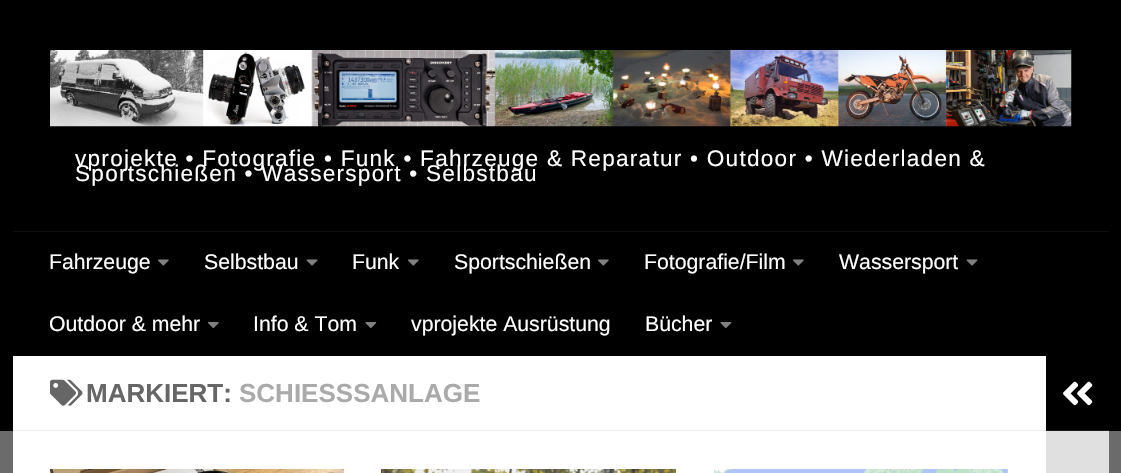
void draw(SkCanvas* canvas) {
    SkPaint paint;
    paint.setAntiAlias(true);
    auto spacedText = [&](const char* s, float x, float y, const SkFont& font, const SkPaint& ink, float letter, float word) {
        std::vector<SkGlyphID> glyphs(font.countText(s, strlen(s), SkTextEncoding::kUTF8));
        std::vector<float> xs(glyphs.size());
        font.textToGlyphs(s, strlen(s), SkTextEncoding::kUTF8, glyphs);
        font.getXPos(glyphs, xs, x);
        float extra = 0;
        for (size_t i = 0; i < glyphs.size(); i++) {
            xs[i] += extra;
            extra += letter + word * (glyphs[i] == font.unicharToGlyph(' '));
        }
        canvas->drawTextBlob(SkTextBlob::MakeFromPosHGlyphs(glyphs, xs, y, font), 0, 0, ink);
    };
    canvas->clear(0xFF6B6B6B);
    paint.setColor(0xFF000000);
    canvas->drawRect(SkRect::MakeXYWH(0, 0, 1121, 431), paint);
    canvas->drawImageRect(SkImages::DeferredFromEncodedData(SkData::MakeFromFileName("img1.png")), SkRect::MakeXYWH(50, 50, 1022, 77), SkSamplingOptions());
    SkFont font1(fontMgr->matchFamilyStyle("Liberation Sans", SkFontStyle::Normal()), 22.6f);
    font1.setSubpixel(true);
    paint.setColor(0xFFFFFFFF);
    spacedText("vprojekte • Fotografie • Funk • Fahrzeuge & Reparatur • Outdoor • Wiederladen &", 75, 166, font1, paint, 1.25f, 0);
    spacedText("Sportschießen • Wassersport • Selbstbau", 75, 181, font1, paint, 1.25f, 0);
    paint.setColor(0xFF0D0D0D);
    canvas->drawRect(SkRect::MakeXYWH(13, 231, 1096, 1), paint);
    SkFont font2(fontMgr->matchFamilyStyle("Liberation Sans", SkFontStyle::Normal()), 21.25f);
    font2.setSubpixel(true);
    paint.setColor(0xFFFFFFFF);
    canvas->drawString("Fahrzeuge", 49, 269, font2, paint);
    canvas->drawImageRect(SkImages::DeferredFromEncodedData(SkData::MakeFromFileName("img2.png")), SkRect::MakeXYWH(158, 259, 11, 7), SkSamplingOptions());
    canvas->drawString("Selbstbau", 204, 269, font2, paint);
    canvas->drawImageRect(SkImages::DeferredFromEncodedData(SkData::MakeFromFileName("img3.png")), SkRect::MakeXYWH(306, 259, 12, 7), SkSamplingOptions());
    canvas->drawString("Funk", 352, 269, font2, paint);
    canvas->drawImageRect(SkImages::DeferredFromEncodedData(SkData::MakeFromFileName("img2.png")), SkRect::MakeXYWH(408, 259, 11, 7), SkSamplingOptions());
    canvas->drawString("Sportschießen", 454, 269, font2, paint);
    canvas->drawImageRect(SkImages::DeferredFromEncodedData(SkData::MakeFromFileName("img2.png")), SkRect::MakeXYWH(598, 259, 11, 7), SkSamplingOptions());
    canvas->drawString("Fotografie/Film", 644, 269, font2, paint);
    canvas->drawImageRect(SkImages::DeferredFromEncodedData(SkData::MakeFromFileName("img2.png")), SkRect::MakeXYWH(793, 259, 11, 7), SkSamplingOptions());
    canvas->drawString("Wassersport", 839, 269, font2, paint);
    canvas->drawImageRect(SkImages::DeferredFromEncodedData(SkData::MakeFromFileName("img3.png")), SkRect::MakeXYWH(966, 259, 12, 7), SkSamplingOptions());
    canvas->drawString("Outdoor & mehr", 49, 331, font2, paint);
    canvas->drawImageRect(SkImages::DeferredFromEncodedData(SkData::MakeFromFileName("img4.png")), SkRect::MakeXYWH(208, 322, 11, 6), SkSamplingOptions());
    canvas->drawString("Info & Tom", 253, 331, font2, paint);
    canvas->drawImageRect(SkImages::DeferredFromEncodedData(SkData::MakeFromFileName("img5.png")), SkRect::MakeXYWH(365, 322, 12, 6), SkSamplingOptions());
    canvas->drawString("vprojekte Ausrüstung", 411, 331, font2, paint);
    canvas->drawString("Bücher", 645, 331, font2, paint);
    canvas->drawImageRect(SkImages::DeferredFromEncodedData(SkData::MakeFromFileName("img5.png")), SkRect::MakeXYWH(720, 322, 12, 6), SkSamplingOptions());
    canvas->drawRect(SkRect::MakeXYWH(13, 356, 1033, 117), paint);
    paint.setColor(0xFFEEEEEE);
    canvas->drawRect(SkRect::MakeXYWH(13, 430, 1033, 1), paint);
    canvas->drawImageRect(SkImages::DeferredFromEncodedData(SkData::MakeFromFileName("img6.png")), SkRect::MakeXYWH(50, 379, 33, 27), SkSamplingOptions());
    SkFont font3(fontMgr->matchFamilyStyle("Liberation Sans", SkFontStyle::Bold()), 26);
    font3.setSubpixel(true);
    paint.setColor(0xFF666666);
    canvas->drawString("MARKIERT:", 86, 402, font3, paint);
    paint.setColor(0xFFAAAAAA);
    canvas->drawString("SCHIESSSANLAGE", 239, 402, font3, paint);
    paint.setStyle(SkPaint::kStroke_Style);
    paint.setStrokeWidth(1);
    paint.setColor(0xFFEFEFEF);
    canvas->drawRect(SkRect::MakeXYWH(50.5f, 469.5f, 293, 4), paint);
    canvas->drawImageRect(SkImages::DeferredFromEncodedData(SkData::MakeFromFileName("img7.png")), SkRect::MakeXYWH(50, 469, 294, 4), SkSamplingOptions());
    canvas->drawImageRect(SkImages::DeferredFromEncodedData(SkData::MakeFromFileName("img8.png")), SkRect::MakeXYWH(381, 469, 295, 4), SkSamplingOptions());
    canvas->drawRect(SkRect::MakeXYWH(714.5f, 469.5f, 293, 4), paint);
    canvas->drawImageRect(SkImages::DeferredFromEncodedData(SkData::MakeFromFileName("img9.png")), SkRect::MakeXYWH(714, 469, 294, 4), SkSamplingOptions());
    paint.setStyle(SkPaint::kFill_Style);
    paint.setColor(0xFF1A1A1A);
    canvas->drawRect(SkRect::MakeXYWH(1046, 430, 63, 1), paint);
    canvas->drawImageRect(SkImages::DeferredFromEncodedData(SkData::MakeFromFileName("img10.png")), SkRect::MakeXYWH(1063, 381, 30, 25), SkSamplingOptions());
    paint.setColor(0xFFE0E0E0);
    canvas->drawRect(SkRect::MakeXYWH(1046, 431, 63, 42), paint);
}
